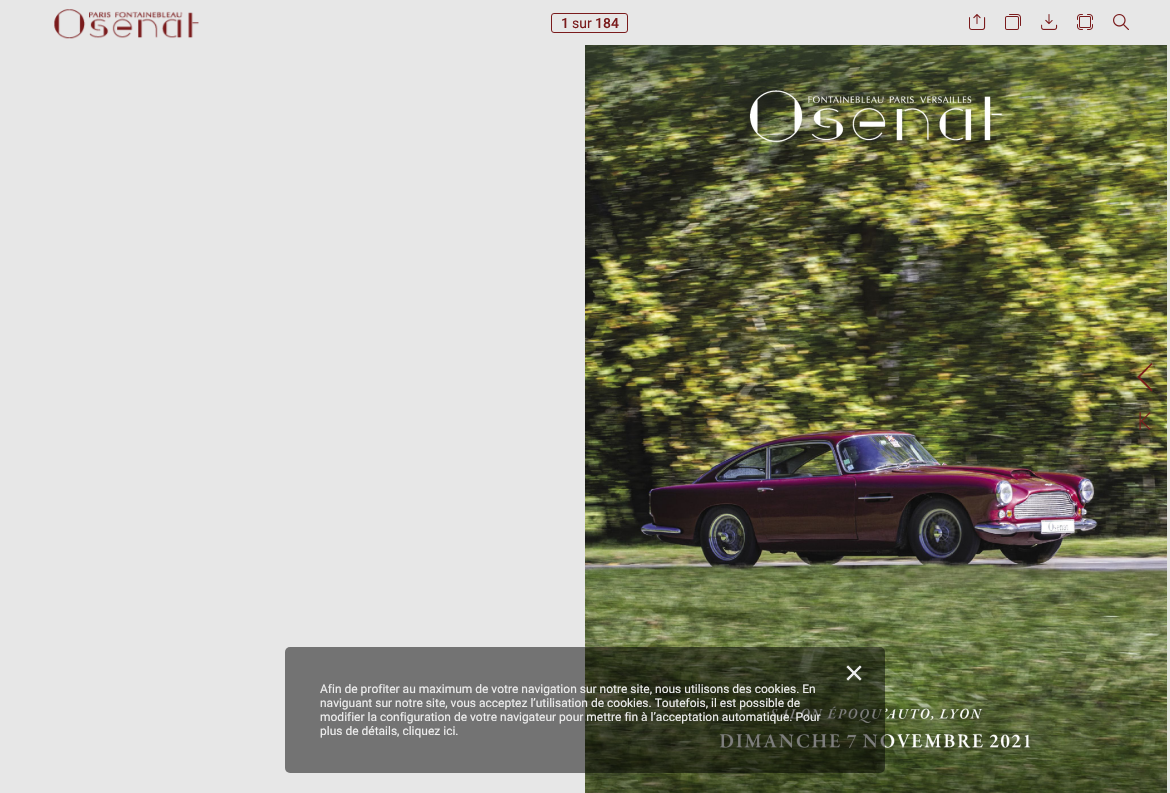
void draw(SkCanvas* canvas) {
    SkPaint paint;
    paint.setAntiAlias(true);
    canvas->clear(0xFFE7E7E7);
    canvas->drawImageRect(SkImages::DeferredFromEncodedData(SkData::MakeFromFileName("img1.png")), SkRect::MakeXYWH(54, 9, 145, 30), SkSamplingOptions());
    paint.setStyle(SkPaint::kStroke_Style);
    paint.setStrokeWidth(1);
    paint.setColor(0xFF7A1B1C);
    canvas->drawRoundRect(SkRect::MakeXYWH(551.5f, 13.5f, 76, 19), 2.5f, 2.5f, paint);
    SkFont font1(fontMgr->matchFamilyStyle("Roboto", SkFontStyle(500, SkFontStyle::kNormal_Width, SkFontStyle::kUpright_Slant)), 14);
    font1.setSubpixel(true);
    paint.setStyle(SkPaint::kFill_Style);
    canvas->drawString("1", 561, 28, font1, paint);
    SkFont font2(fontMgr->matchFamilyStyle("Roboto", SkFontStyle::Normal()), 14);
    font2.setSubpixel(true);
    canvas->drawString("sur", 572, 28, font2, paint);
    canvas->drawString("184", 595, 28, font1, paint);
    canvas->drawImageRect(SkImages::DeferredFromEncodedData(SkData::MakeFromFileName("img2.png")), SkRect::MakeXYWH(969, 14, 17, 16), SkSamplingOptions());
    canvas->drawImageRect(SkImages::DeferredFromEncodedData(SkData::MakeFromFileName("img3.png")), SkRect::MakeXYWH(1005, 14, 16, 16), SkSamplingOptions());
    canvas->drawImageRect(SkImages::DeferredFromEncodedData(SkData::MakeFromFileName("img4.png")), SkRect::MakeXYWH(1041, 14, 17, 16), SkSamplingOptions());
    canvas->drawImageRect(SkImages::DeferredFromEncodedData(SkData::MakeFromFileName("img5.png")), SkRect::MakeXYWH(1077, 14, 16, 16), SkSamplingOptions());
    canvas->drawImageRect(SkImages::DeferredFromEncodedData(SkData::MakeFromFileName("img6.png")), SkRect::MakeXYWH(1113, 14, 16, 16), SkSamplingOptions());
    canvas->drawImageRect(SkImages::DeferredFromEncodedData(SkData::MakeFromFileName("img7.png")), SkRect::MakeXYWH(585, 45, 582, 748), SkSamplingOptions());
    canvas->drawPath(SkPathBuilder().moveTo(1151.5f, 363).lineTo(1137, 377).lineTo(1151.5f, 391.5f).lineTo(1152.5f, 390).lineTo(1140, 377).lineTo(1152.5f, 364).close().detach(), paint);
    canvas->drawImageRect(SkImages::DeferredFromEncodedData(SkData::MakeFromFileName("img8.png")), SkRect::MakeXYWH(1139, 412, 12, 18), SkSamplingOptions());
    paint.setColor(0x80000000);
    canvas->drawRoundRect(SkRect::MakeXYWH(285, 647, 600, 126), 5, 5, paint);
    canvas->drawImageRect(SkImages::DeferredFromEncodedData(SkData::MakeFromFileName("img9.png")), SkRect::MakeXYWH(846, 665, 16, 16), SkSamplingOptions());
    SkFont font3(fontMgr->matchFamilyStyle("Roboto", SkFontStyle::Normal()), 12);
    font3.setSubpixel(true);
    paint.setColor(0xFFEEEEEE);
    canvas->drawString("Afin de profiter au maximum de votre navigation sur notre site, nous utilisons des cookies. En", 320, 693, font3, paint);
    canvas->drawString("naviguant sur notre site, vous acceptez l’utilisation de cookies. Toutefois, il est possible de", 320, 707, font3, paint);
    canvas->drawString("modifier la configuration de votre navigateur pour mettre fin à l’acceptation automatique. Pour", 320, 721, font3, paint);
    canvas->drawString("plus de détails, cliquez ici.", 320, 735, font3, paint);
}
